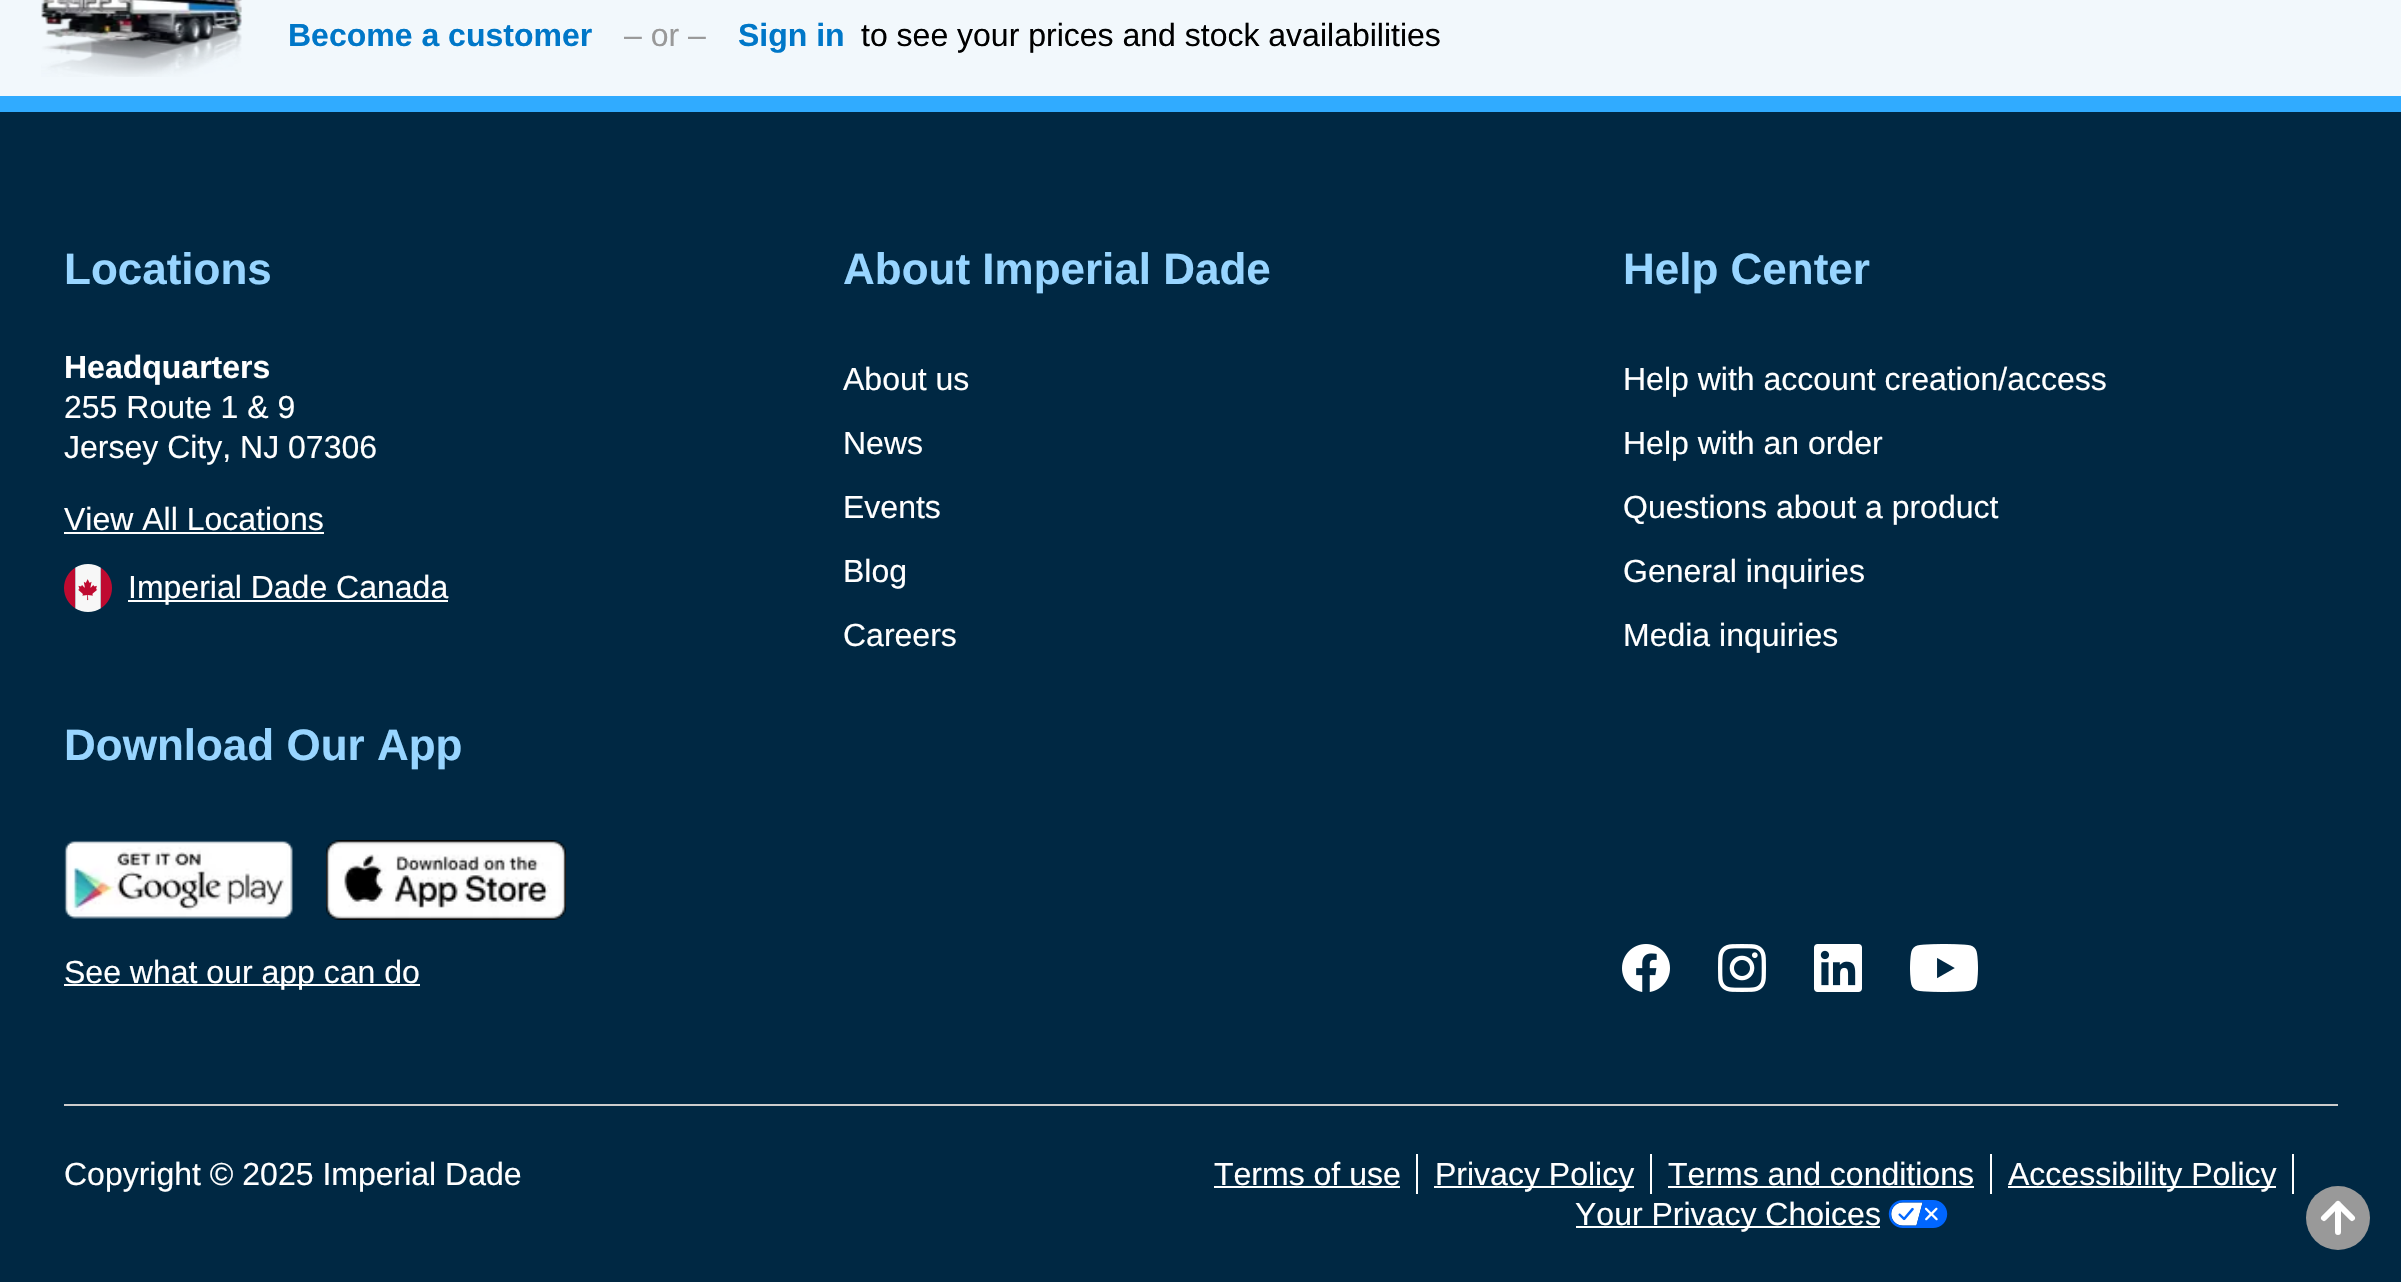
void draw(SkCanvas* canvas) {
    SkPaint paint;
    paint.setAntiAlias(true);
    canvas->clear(0xFF002843);
    paint.setColor(0xFFF2F8FC);
    canvas->drawRect(SkRect::MakeXYWH(0, 0, 2401, 96), paint);
    canvas->drawImageRect(SkImages::DeferredFromEncodedData(SkData::MakeFromFileName("img1.png")), SkRect::MakeXYWH(41, 0, 201, 77), SkSamplingOptions());
    SkFont font1(fontMgr->matchFamilyStyle("Liberation Sans", SkFontStyle::Bold()), 32);
    font1.setSubpixel(true);
    paint.setColor(0xFF0077C8);
    canvas->drawString("Become a customer", 288, 46, font1, paint);
    SkFont font2(fontMgr->matchFamilyStyle("Liberation Sans", SkFontStyle::Normal()), 32);
    font2.setSubpixel(true);
    paint.setColor(0xFF999999);
    canvas->drawString("– or –", 624, 46, font2, paint);
    paint.setColor(0xFF0077C8);
    canvas->drawString("Sign in", 738, 46, font1, paint);
    paint.setColor(0xFF000000);
    canvas->drawString("to see your prices and stock availabilities", 861, 46, font2, paint);
    paint.setColor(0xFF999999);
    canvas->drawCircle(2338, 1218, 32, paint);
    paint.setStyle(SkPaint::kStroke_Style);
    paint.setStrokeWidth(6);
    paint.setStrokeCap(SkPaint::kRound_Cap);
    paint.setStrokeJoin(SkPaint::kRound_Join);
    paint.setColor(0xFFFFFFFF);
    canvas->drawPath(SkPathBuilder().moveTo(2338, 1232).lineTo(2338, 1204).moveTo(2324, 1218).lineTo(2338, 1204).lineTo(2352, 1218).detach(), paint);
    paint.setStyle(SkPaint::kFill_Style);
    paint.setColor(0xFF30ABFF);
    canvas->drawRect(SkRect::MakeXYWH(0, 96, 2401, 16), paint);
    SkFont font3(fontMgr->matchFamilyStyle("Liberation Sans", SkFontStyle::Bold()), 44);
    font3.setSubpixel(true);
    paint.setColor(0xFF98D5FF);
    canvas->drawString("Locations", 64, 284, font3, paint);
    paint.setColor(0xFFFFFFFF);
    canvas->drawString("Headquarters", 64, 378, font1, paint);
    canvas->drawString("255 Route 1 & 9", 64, 418, font2, paint);
    canvas->drawString("Jersey City, NJ 07306", 64, 458, font2, paint);
    canvas->drawString("View All Locations", 64, 530, font2, paint);
    canvas->drawRect(SkRect::MakeXYWH(64, 532, 260, 2), paint);
    canvas->drawImageRect(SkImages::DeferredFromEncodedData(SkData::MakeFromFileName("img2.png")), SkRect::MakeXYWH(64, 564, 48, 48), SkSamplingOptions());
    canvas->drawRect(SkRect::MakeXYWH(128, 600, 320, 2), paint);
    canvas->drawString("Imperial Dade Canada", 128, 598, font2, paint);
    paint.setColor(0xFF98D5FF);
    canvas->drawString("Download Our App", 64, 760, font3, paint);
    canvas->drawImageRect(SkImages::DeferredFromEncodedData(SkData::MakeFromFileName("img3.png")), SkRect::MakeXYWH(64, 840, 229, 79), SkSamplingOptions());
    canvas->drawImageRect(SkImages::DeferredFromEncodedData(SkData::MakeFromFileName("img4.png")), SkRect::MakeXYWH(326, 840, 240, 80), SkSamplingOptions());
    paint.setColor(0xFFFFFFFF);
    canvas->drawRect(SkRect::MakeXYWH(64, 984, 356, 2), paint);
    canvas->drawString("See what our app can do", 64, 983, font2, paint);
    paint.setColor(0xFF98D5FF);
    canvas->drawString("About Imperial Dade", 843, 284, font3, paint);
    paint.setColor(0xFFFFFFFF);
    canvas->drawString("About us", 843, 390, font2, paint);
    canvas->drawString("News", 843, 454, font2, paint);
    canvas->drawString("Events", 843, 518, font2, paint);
    canvas->drawString("Blog", 843, 582, font2, paint);
    canvas->drawString("Careers", 843, 646, font2, paint);
    paint.setColor(0xFF98D5FF);
    canvas->drawString("Help Center", 1623, 284, font3, paint);
    paint.setColor(0xFFFFFFFF);
    canvas->drawString("Help with account creation/access", 1623, 390, font2, paint);
    canvas->drawString("Help with an order", 1623, 454, font2, paint);
    canvas->drawString("Questions about a product", 1623, 518, font2, paint);
    canvas->drawString("General inquiries", 1623, 582, font2, paint);
    canvas->drawString("Media inquiries", 1623, 646, font2, paint);
    canvas->drawImageRect(SkImages::DeferredFromEncodedData(SkData::MakeFromFileName("img5.png")), SkRect::MakeXYWH(1622, 944, 48, 48), SkSamplingOptions());
    canvas->drawImageRect(SkImages::DeferredFromEncodedData(SkData::MakeFromFileName("img6.png")), SkRect::MakeXYWH(1718, 944, 48, 48), SkSamplingOptions());
    canvas->drawImageRect(SkImages::DeferredFromEncodedData(SkData::MakeFromFileName("img7.png")), SkRect::MakeXYWH(1814, 944, 48, 48), SkSamplingOptions());
    canvas->drawImageRect(SkImages::DeferredFromEncodedData(SkData::MakeFromFileName("img8.png")), SkRect::MakeXYWH(1910, 944, 68, 48), SkSamplingOptions());
    paint.setColor(0xFFCCCCCC);
    canvas->drawRect(SkRect::MakeXYWH(64, 1104, 2274, 2), paint);
    paint.setColor(0xFFFFFFFF);
    canvas->drawString("Copyright © 2025 Imperial Dade", 64, 1185, font2, paint);
    canvas->drawString("Terms of use", 1214, 1185, font2, paint);
    canvas->drawRect(SkRect::MakeXYWH(1214, 1186, 186, 2), paint);
    canvas->drawRect(SkRect::MakeXYWH(1416, 1154, 2, 40), paint);
    canvas->drawRect(SkRect::MakeXYWH(1434, 1186, 200, 2), paint);
    canvas->drawString("Privacy Policy", 1435, 1185, font2, paint);
    canvas->drawRect(SkRect::MakeXYWH(1650, 1154, 2, 40), paint);
    canvas->drawString("Terms and conditions", 1668, 1185, font2, paint);
    canvas->drawRect(SkRect::MakeXYWH(1668, 1186, 306, 2), paint);
    canvas->drawRect(SkRect::MakeXYWH(1990, 1154, 2, 40), paint);
    canvas->drawRect(SkRect::MakeXYWH(2008, 1186, 268, 2), paint);
    canvas->drawString("Accessibility Policy", 2008, 1185, font2, paint);
    canvas->drawRect(SkRect::MakeXYWH(2292, 1154, 2, 40), paint);
    canvas->drawRect(SkRect::MakeXYWH(1576, 1226, 304, 2), paint);
    canvas->drawString("Your Privacy Choices", 1575, 1225, font2, paint);
    canvas->drawImageRect(SkImages::DeferredFromEncodedData(SkData::MakeFromFileName("img9.png")), SkRect::MakeXYWH(1888, 1200, 60, 28), SkSamplingOptions());
}
